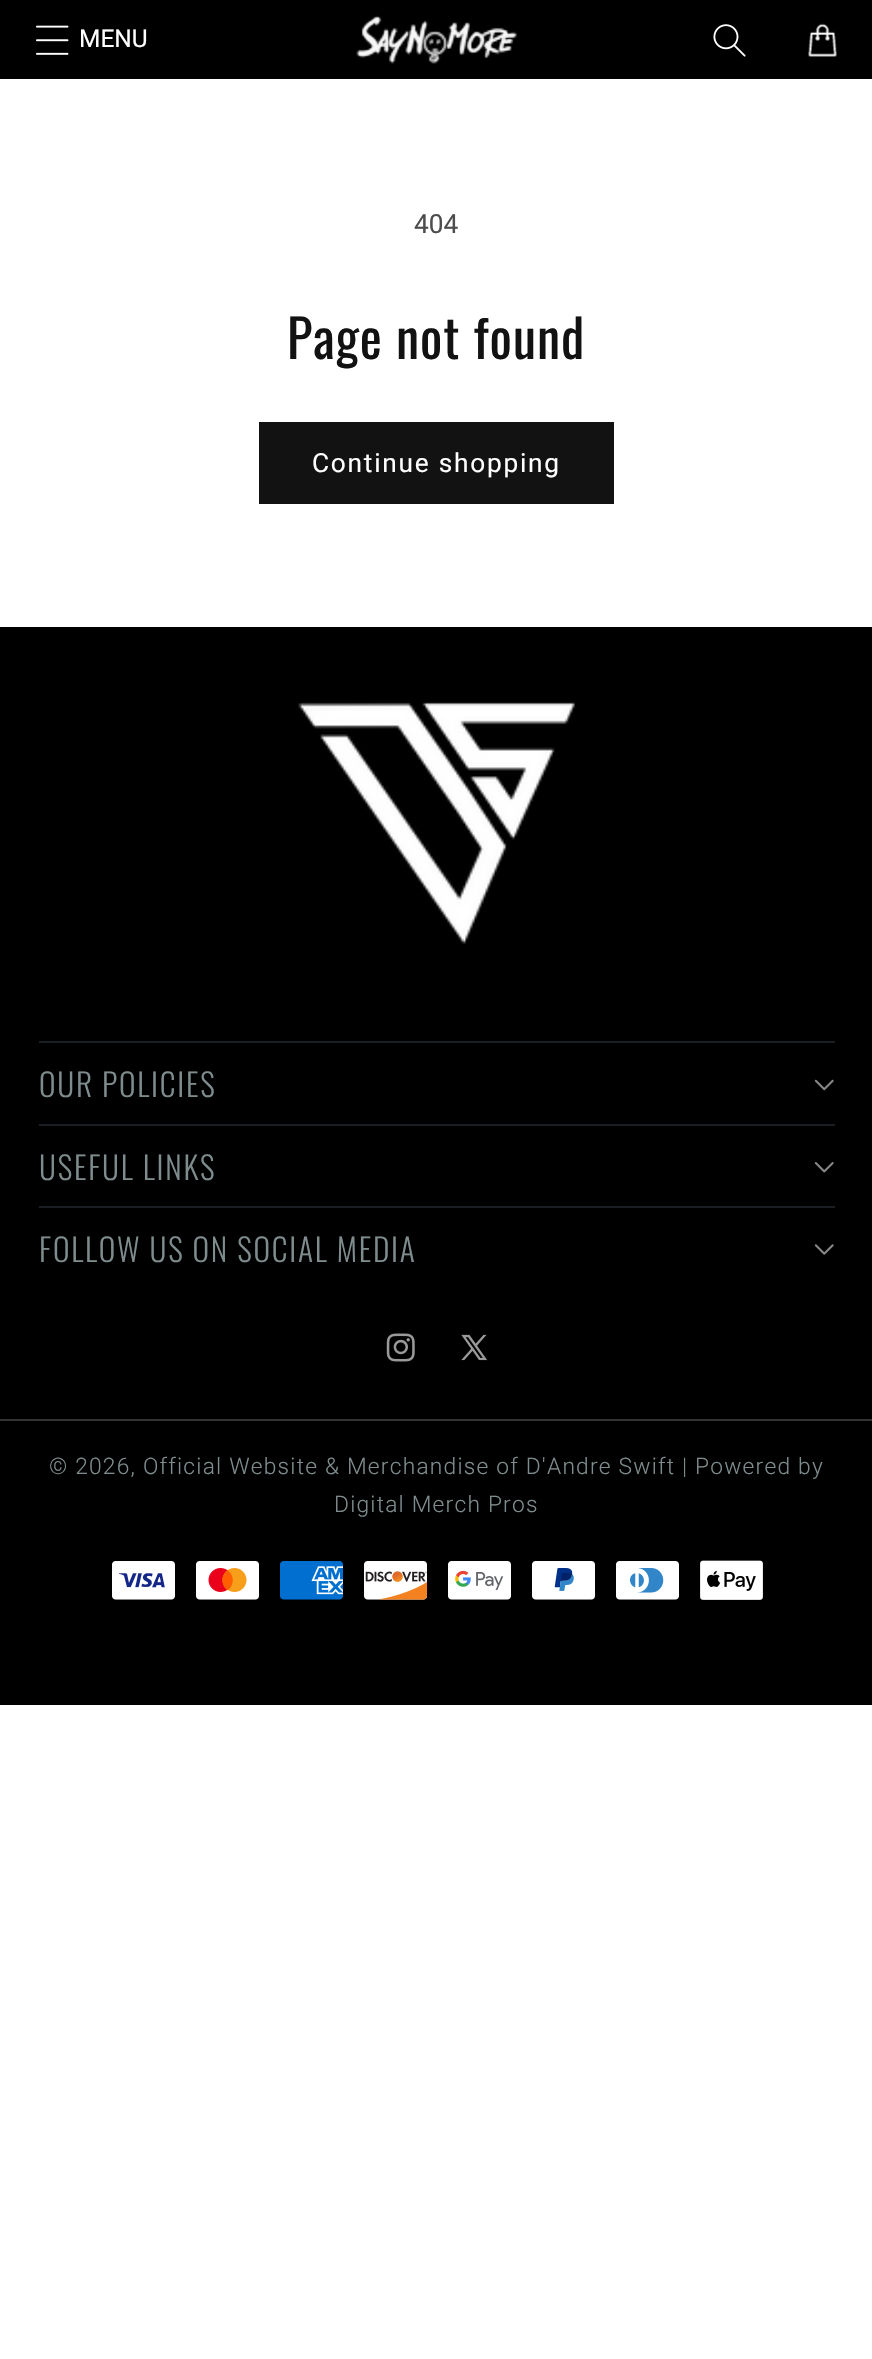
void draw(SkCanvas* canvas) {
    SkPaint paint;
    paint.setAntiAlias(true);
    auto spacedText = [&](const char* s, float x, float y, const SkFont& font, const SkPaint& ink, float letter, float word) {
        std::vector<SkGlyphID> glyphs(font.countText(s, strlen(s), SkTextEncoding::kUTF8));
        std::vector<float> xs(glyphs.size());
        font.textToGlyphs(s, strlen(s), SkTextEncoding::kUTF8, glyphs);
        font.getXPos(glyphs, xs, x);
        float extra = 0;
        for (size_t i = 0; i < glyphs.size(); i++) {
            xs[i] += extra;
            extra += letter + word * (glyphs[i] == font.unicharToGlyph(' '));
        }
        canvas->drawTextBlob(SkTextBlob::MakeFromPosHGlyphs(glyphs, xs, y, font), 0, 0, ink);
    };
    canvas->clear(0xFFFFFFFF);
    paint.setColor(0xFF000000);
    canvas->drawRect(SkRect::MakeXYWH(0, 0, 872, 79), paint);
    canvas->drawImageRect(SkImages::DeferredFromEncodedData(SkData::MakeFromFileName("img3.png")), SkRect::MakeXYWH(356, 16, 161, 48), SkSamplingOptions());
    canvas->drawImageRect(SkImages::DeferredFromEncodedData(SkData::MakeFromFileName("img1.png")), SkRect::MakeXYWH(356, 15, 161, 49), SkSamplingOptions());
    canvas->drawImageRect(SkImages::DeferredFromEncodedData(SkData::MakeFromFileName("img2.png")), SkRect::MakeXYWH(36, 25, 33, 30), SkSamplingOptions());
    SkFont font1(fontMgr->matchFamilyStyle("Roboto", SkFontStyle::Normal()), 24.5f);
    font1.setSubpixel(true);
    paint.setColor(0xFFFFFFFF);
    canvas->drawString("MENU", 79, 47, font1, paint);
    canvas->drawImageRect(SkImages::DeferredFromEncodedData(SkData::MakeFromFileName("img4.png")), SkRect::MakeXYWH(713, 24, 33, 33), SkSamplingOptions());
    canvas->drawImageRect(SkImages::DeferredFromEncodedData(SkData::MakeFromFileName("img5.png")), SkRect::MakeXYWH(808, 23, 29, 34), SkSamplingOptions());
    SkFont font2(fontMgr->matchFamilyStyle("Roboto", SkFontStyle::Normal()), 26.25f);
    font2.setSubpixel(true);
    paint.setColor(0xFF4D4D4D);
    canvas->drawString("404", 414, 233, font2, paint);
    SkFont font3(fontMgr->matchFamilyStyle("Oswald", SkFontStyle::Normal()), 52.5f);
    font3.setSubpixel(true);
    paint.setColor(0xFF121212);
    spacedText("Page not found", 287, 359, font3, paint, 1, 0);
    canvas->drawRect(SkRect::MakeXYWH(259, 422, 355, 82), paint);
    paint.setColor(0xFFFFFFFF);
    spacedText("Continue shopping", 312, 472, font2, paint, 1.75f, 0);
    paint.setColor(0xFF000000);
    canvas->drawRect(SkRect::MakeXYWH(0, 627, 872, 1078), paint);
    paint.setColor(0xFF333333);
    canvas->drawRect(SkRect::MakeXYWH(0, 1419, 872, 2), paint);
    canvas->drawImageRect(SkImages::DeferredFromEncodedData(SkData::MakeFromFileName("img6.png")), SkRect::MakeXYWH(298, 702, 277, 242), SkSamplingOptions());
    paint.setColor(0xFF1B1F23);
    canvas->drawRect(SkRect::MakeXYWH(39, 1041, 796, 2), paint);
    SkFont font4(fontMgr->matchFamilyStyle("Oswald", SkFontStyle(300, SkFontStyle::kNormal_Width, SkFontStyle::kUpright_Slant)), 31.5f);
    font4.setSubpixel(true);
    paint.setColor(0xFF7F8C8D);
    spacedText("OUR POLICIES", 39, 1097, font4, paint, 1.75f, 0);
    canvas->drawImageRect(SkImages::DeferredFromEncodedData(SkData::MakeFromFileName("img7.png")), SkRect::MakeXYWH(814, 1079, 20, 12), SkSamplingOptions());
    paint.setColor(0xFF1B1F23);
    canvas->drawRect(SkRect::MakeXYWH(39, 1124, 796, 2), paint);
    paint.setColor(0xFF7F8C8D);
    spacedText("USEFUL LINKS", 39, 1180, font4, paint, 1.75f, 0);
    canvas->drawImageRect(SkImages::DeferredFromEncodedData(SkData::MakeFromFileName("img8.png")), SkRect::MakeXYWH(814, 1162, 20, 11), SkSamplingOptions());
    paint.setColor(0xFF1B1F23);
    canvas->drawRect(SkRect::MakeXYWH(39, 1206, 796, 2), paint);
    paint.setColor(0xFF7F8C8D);
    spacedText("FOLLOW US ON SOCIAL MEDIA", 39, 1262, font4, paint, 1.75f, 0);
    canvas->drawImageRect(SkImages::DeferredFromEncodedData(SkData::MakeFromFileName("img9.png")), SkRect::MakeXYWH(814, 1244, 20, 11), SkSamplingOptions());
    canvas->drawImageRect(SkImages::DeferredFromEncodedData(SkData::MakeFromFileName("img10.png")), SkRect::MakeXYWH(386, 1333, 29, 29), SkSamplingOptions());
    canvas->drawImageRect(SkImages::DeferredFromEncodedData(SkData::MakeFromFileName("img11.png")), SkRect::MakeXYWH(461, 1334, 26, 27), SkSamplingOptions());
    SkFont font5(fontMgr->matchFamilyStyle("Roboto", SkFontStyle(300, SkFontStyle::kNormal_Width, SkFontStyle::kUpright_Slant)), 22.75f);
    font5.setSubpixel(true);
    spacedText("© 2026, Official Website & Merchandise of D'Andre Swift", 49, 1474, font5, paint, 1.22f, 0);
    spacedText("| Powered by", 682, 1474, font5, paint, 1.22f, 0);
    spacedText("Digital Merch Pros", 334, 1512, font5, paint, 1.22f, 0);
    canvas->drawImageRect(SkImages::DeferredFromEncodedData(SkData::MakeFromFileName("img12.png")), SkRect::MakeXYWH(112, 1561, 63, 39), SkSamplingOptions());
    canvas->drawImageRect(SkImages::DeferredFromEncodedData(SkData::MakeFromFileName("img13.png")), SkRect::MakeXYWH(196, 1561, 63, 39), SkSamplingOptions());
    canvas->drawImageRect(SkImages::DeferredFromEncodedData(SkData::MakeFromFileName("img14.png")), SkRect::MakeXYWH(280, 1561, 63, 39), SkSamplingOptions());
    canvas->drawImageRect(SkImages::DeferredFromEncodedData(SkData::MakeFromFileName("img15.png")), SkRect::MakeXYWH(364, 1561, 64, 39), SkSamplingOptions());
    canvas->drawImageRect(SkImages::DeferredFromEncodedData(SkData::MakeFromFileName("img16.png")), SkRect::MakeXYWH(448, 1561, 63, 39), SkSamplingOptions());
    canvas->drawImageRect(SkImages::DeferredFromEncodedData(SkData::MakeFromFileName("img17.png")), SkRect::MakeXYWH(532, 1561, 63, 39), SkSamplingOptions());
    canvas->drawImageRect(SkImages::DeferredFromEncodedData(SkData::MakeFromFileName("img18.png")), SkRect::MakeXYWH(616, 1561, 63, 39), SkSamplingOptions());
    canvas->drawImageRect(SkImages::DeferredFromEncodedData(SkData::MakeFromFileName("img19.png")), SkRect::MakeXYWH(700, 1560, 63, 40), SkSamplingOptions());
}
